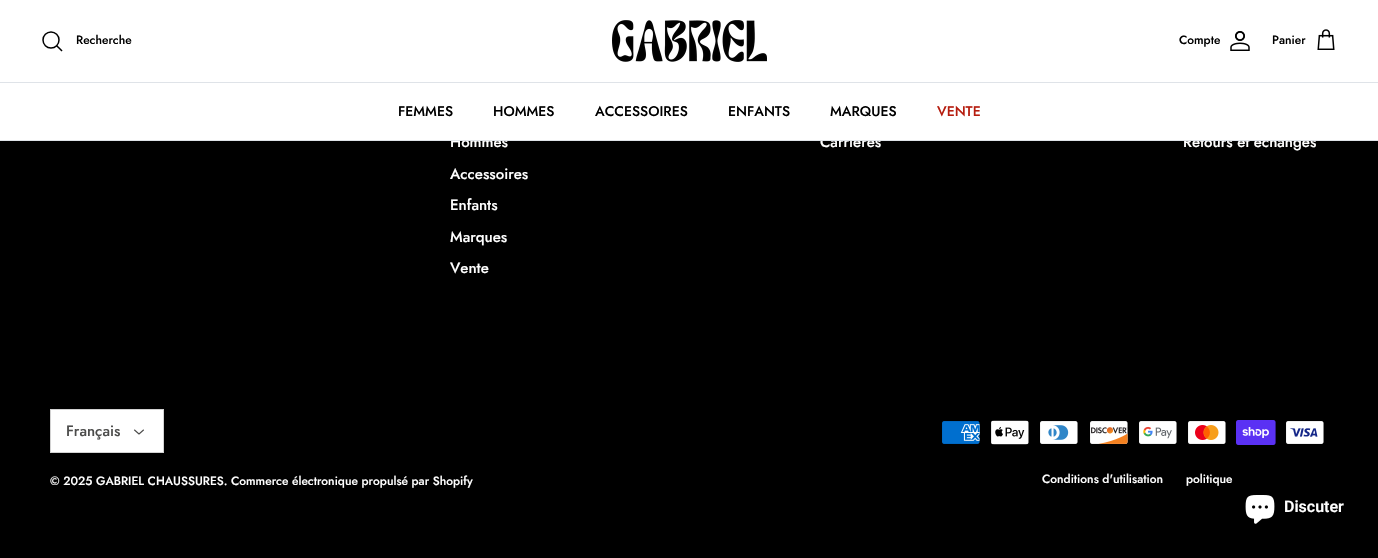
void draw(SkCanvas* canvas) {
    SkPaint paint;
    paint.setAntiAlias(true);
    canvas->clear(0xFF000000);
    paint.setColor(0xFFFFFFFF);
    canvas->drawRect(SkRect::MakeXYWH(0, 0, 1378, 82), paint);
    paint.setColor(0xFFDFE3E8);
    canvas->drawRect(SkRect::MakeXYWH(0, 82, 1378, 1), paint);
    paint.setStyle(SkPaint::kStroke_Style);
    paint.setStrokeWidth(1.5f);
    paint.setColor(0xFF000000);
    canvas->drawCircle(51, 40, 8, paint);
    SkFont font1(fontMgr->matchFamilyStyle("Jost", SkFontStyle(500, SkFontStyle::kNormal_Width, SkFontStyle::kUpright_Slant)), 12);
    font1.setSubpixel(true);
    paint.setStyle(SkPaint::kFill_Style);
    canvas->drawString("Recherche", 76, 44, font1, paint);
    paint.setStyle(SkPaint::kStroke_Style);
    paint.setStrokeCap(SkPaint::kSquare_Cap);
    canvas->drawPath(SkPathBuilder().moveTo(57, 46).lineTo(61.5f, 50.5f).detach(), paint);
    canvas->drawImageRect(SkImages::DeferredFromEncodedData(SkData::MakeFromFileName("img1.png")), SkRect::MakeXYWH(612, 20, 155, 42), SkSamplingOptions());
    paint.setStyle(SkPaint::kFill_Style);
    canvas->drawString("Compte", 1179, 44, font1, paint);
    canvas->drawImageRect(SkImages::DeferredFromEncodedData(SkData::MakeFromFileName("img2.png")), SkRect::MakeXYWH(1230, 31, 20, 20), SkSamplingOptions());
    canvas->drawString("Panier", 1272, 44, font1, paint);
    canvas->drawImageRect(SkImages::DeferredFromEncodedData(SkData::MakeFromFileName("img3.png")), SkRect::MakeXYWH(1317, 29, 18, 21), SkSamplingOptions());
    SkFont font2(fontMgr->matchFamilyStyle("Jost", SkFontStyle(500, SkFontStyle::kNormal_Width, SkFontStyle::kUpright_Slant)), 15);
    font2.setSubpixel(true);
    paint.setColor(0xFFFFFFFF);
    canvas->drawString("Hommes", 450, 147, font2, paint);
    canvas->drawString("Carrières", 820, 147, font2, paint);
    canvas->drawString("Retours et échanges", 1183, 147, font2, paint);
    paint.setColor(0xFFDFE3E8);
    canvas->drawRect(SkRect::MakeXYWH(0, 140, 1378, 1), paint);
    paint.setColor(0xFFFFFFFF);
    canvas->drawRect(SkRect::MakeXYWH(0, 83, 1378, 57), paint);
    SkFont font3(fontMgr->matchFamilyStyle("Jost", SkFontStyle(500, SkFontStyle::kNormal_Width, SkFontStyle::kUpright_Slant)), 14);
    font3.setSubpixel(true);
    paint.setColor(0xFF000000);
    canvas->drawString("FEMMES", 398, 116, font3, paint);
    canvas->drawString("HOMMES", 493, 116, font3, paint);
    canvas->drawString("ACCESSOIRES", 595, 116, font3, paint);
    canvas->drawString("ENFANTS", 728, 116, font3, paint);
    canvas->drawString("MARQUES", 830, 116, font3, paint);
    paint.setColor(0xFFB61D0F);
    canvas->drawString("VENTE", 937, 116, font3, paint);
    paint.setColor(0xFFFFFFFF);
    canvas->drawString("Accessoires", 450, 179, font2, paint);
    canvas->drawString("Enfants", 450, 210, font2, paint);
    canvas->drawString("Marques", 450, 242, font2, paint);
    canvas->drawString("Vente", 450, 273, font2, paint);
    canvas->drawRect(SkRect::MakeXYWH(50.5f, 409.5f, 113, 43), paint);
    paint.setStyle(SkPaint::kStroke_Style);
    paint.setStrokeWidth(1);
    paint.setStrokeCap(SkPaint::kButt_Cap);
    paint.setColor(0xFFD2D2D2);
    canvas->drawRect(SkRect::MakeXYWH(50.5f, 409.5f, 113, 43), paint);
    paint.setStyle(SkPaint::kFill_Style);
    paint.setColor(0xFF4C4C4B);
    canvas->drawString("Français", 66, 436, font2, paint);
    paint.setStyle(SkPaint::kStroke_Style);
    paint.setStrokeWidth(1.1f);
    paint.setStrokeCap(SkPaint::kRound_Cap);
    paint.setStrokeJoin(SkPaint::kRound_Join);
    canvas->drawPath(SkPathBuilder().moveTo(134.5f, 430).lineTo(139, 434).lineTo(143.5f, 430).detach(), paint);
    paint.setStyle(SkPaint::kFill_Style);
    paint.setColor(0xFFFFFFFF);
    canvas->drawString("© 2025 GABRIEL CHAUSSURES. Commerce électronique propulsé par Shopify", 50, 485, font1, paint);
    canvas->drawImageRect(SkImages::DeferredFromEncodedData(SkData::MakeFromFileName("img4.png")), SkRect::MakeXYWH(942, 421, 38, 23), SkSamplingOptions());
    canvas->drawImageRect(SkImages::DeferredFromEncodedData(SkData::MakeFromFileName("img5.png")), SkRect::MakeXYWH(991, 420, 38, 25), SkSamplingOptions());
    canvas->drawImageRect(SkImages::DeferredFromEncodedData(SkData::MakeFromFileName("img6.png")), SkRect::MakeXYWH(1040, 421, 38, 23), SkSamplingOptions());
    canvas->drawImageRect(SkImages::DeferredFromEncodedData(SkData::MakeFromFileName("img7.png")), SkRect::MakeXYWH(1090, 421, 38, 23), SkSamplingOptions());
    canvas->drawImageRect(SkImages::DeferredFromEncodedData(SkData::MakeFromFileName("img8.png")), SkRect::MakeXYWH(1139, 421, 38, 23), SkSamplingOptions());
    canvas->drawImageRect(SkImages::DeferredFromEncodedData(SkData::MakeFromFileName("img9.png")), SkRect::MakeXYWH(1188, 421, 38, 23), SkSamplingOptions());
    canvas->drawImageRect(SkImages::DeferredFromEncodedData(SkData::MakeFromFileName("img10.png")), SkRect::MakeXYWH(1236, 420, 40, 25), SkSamplingOptions());
    canvas->drawImageRect(SkImages::DeferredFromEncodedData(SkData::MakeFromFileName("img11.png")), SkRect::MakeXYWH(1286, 421, 38, 23), SkSamplingOptions());
    canvas->drawString("Conditions d'utilisation", 1042, 483, font1, paint);
    canvas->drawString("politique", 1186, 483, font1, paint);
    canvas->drawImageRect(SkImages::DeferredFromEncodedData(SkData::MakeFromFileName("img12.png")), SkRect::MakeXYWH(1245, 495, 30, 29), SkSamplingOptions());
    SkFont font4(fontMgr->matchFamilyStyle("Roboto", SkFontStyle(600, SkFontStyle::kNormal_Width, SkFontStyle::kUpright_Slant)), 16);
    font4.setSubpixel(true);
    canvas->drawString("Discuter", 1284, 512, font4, paint);
}
